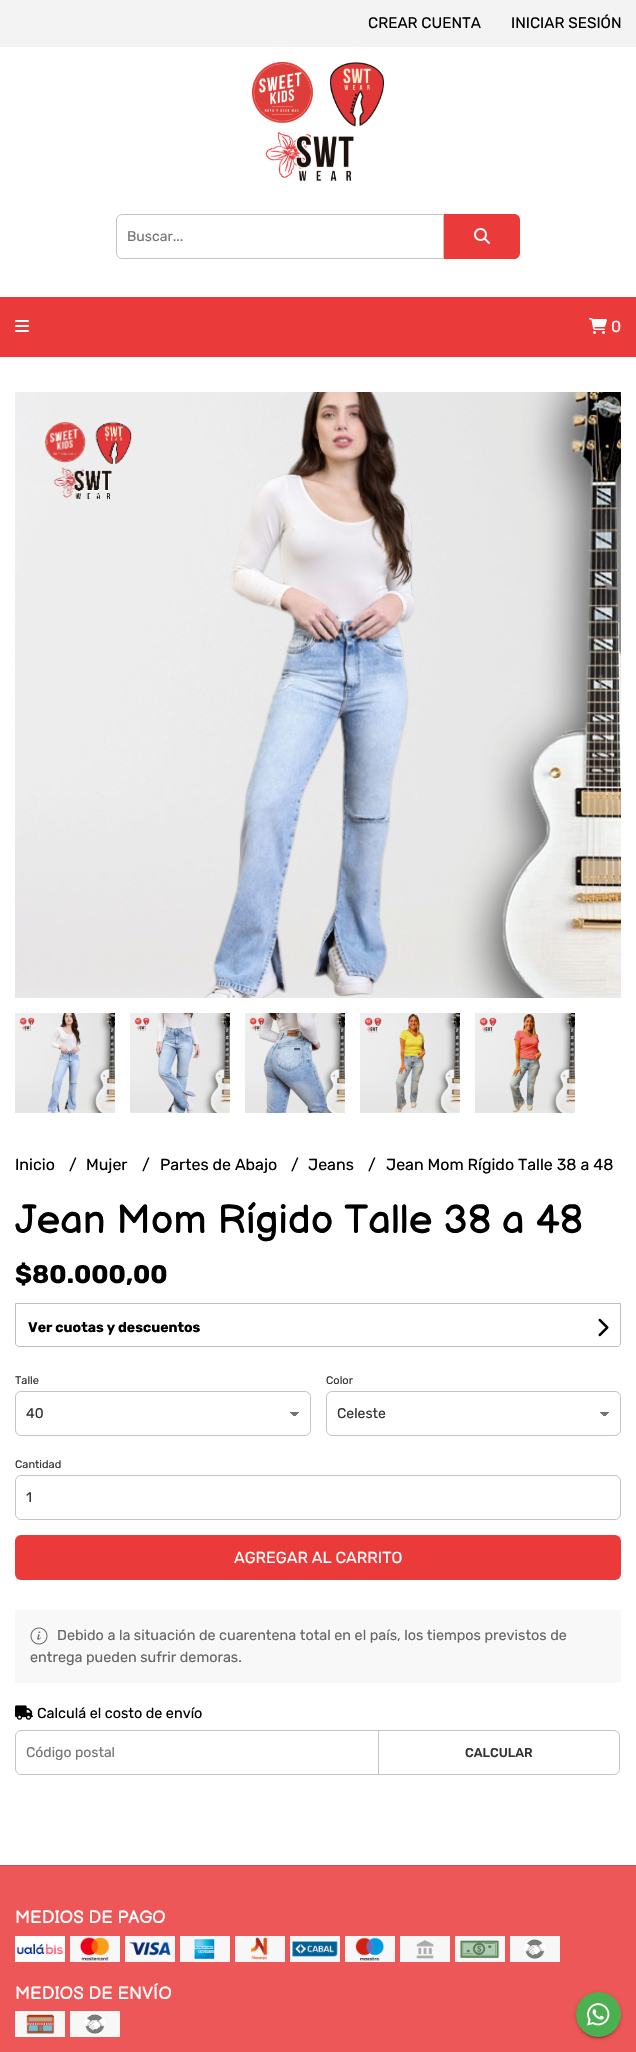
void draw(SkCanvas* canvas) {
    SkPaint paint;
    paint.setAntiAlias(true);
    canvas->clear(0xFFFFFFFF);
    paint.setColor(0xFFF3F3F3);
    canvas->drawRect(SkRect::MakeXYWH(0, 0, 636, 47), paint);
    SkFont font1(fontMgr->matchFamilyStyle("Rubik", SkFontStyle::Normal()), 15.25f);
    font1.setSubpixel(true);
    paint.setColor(0xFF000000);
    canvas->drawString("CREAR CUENTA", 368, 28, font1, paint);
    canvas->drawString("INICIAR SESIÓN", 511, 28, font1, paint);
    canvas->drawImageRect(SkImages::DeferredFromEncodedData(SkData::MakeFromFileName("img1.png")), SkRect::MakeXYWH(252, 62, 132, 120), SkSamplingOptions());
    paint.setStyle(SkPaint::kStroke_Style);
    paint.setStrokeWidth(1);
    paint.setColor(0xFFC4C4C4);
    canvas->drawPath(SkPathBuilder().moveTo(122, 214.5f).lineTo(443.5f, 214.5f).lineTo(443.5f, 258.5f).lineTo(122, 258.5f).cubicTo(119, 258.5f, 116.5f, 256, 116.5f, 253).lineTo(116.5f, 220).cubicTo(116.5f, 217, 119, 214.5f, 122, 214.5f).close().detach(), paint);
    SkFont font2(fontMgr->matchFamilyStyle("Rubik", SkFontStyle::Normal()), 14);
    font2.setSubpixel(true);
    paint.setStyle(SkPaint::kFill_Style);
    paint.setColor(0xFF757575);
    canvas->drawString("Buscar...", 127, 241, font2, paint);
    paint.setColor(0xFFEA3A3A);
    canvas->drawPath(SkPathBuilder().moveTo(444, 214).lineTo(514, 214).cubicTo(517.5f, 214, 520, 216.5f, 520, 220).lineTo(520, 253).cubicTo(520, 256.5f, 517.5f, 259, 514, 259).lineTo(444, 259).close().detach(), paint);
    canvas->drawImageRect(SkImages::DeferredFromEncodedData(SkData::MakeFromFileName("img2.png")), SkRect::MakeXYWH(474, 228, 16, 16), SkSamplingOptions());
    canvas->drawRect(SkRect::MakeXYWH(0, 297, 636, 60), paint);
    canvas->drawImageRect(SkImages::DeferredFromEncodedData(SkData::MakeFromFileName("img3.png")), SkRect::MakeXYWH(15, 320, 14, 12), SkSamplingOptions());
    canvas->drawImageRect(SkImages::DeferredFromEncodedData(SkData::MakeFromFileName("img4.png")), SkRect::MakeXYWH(589, 318, 18, 16), SkSamplingOptions());
    SkFont font3(fontMgr->matchFamilyStyle("Rubik", SkFontStyle::Normal()), 16);
    font3.setSubpixel(true);
    paint.setColor(0xFFFFFFFF);
    canvas->drawString("0", 611, 332, font3, paint);
    canvas->drawImageRect(SkImages::DeferredFromEncodedData(SkData::MakeFromFileName("img5.png")), SkRect::MakeXYWH(15, 392, 606, 606), SkSamplingOptions());
    canvas->drawImageRect(SkImages::DeferredFromEncodedData(SkData::MakeFromFileName("img6.png")), SkRect::MakeXYWH(15, 1013, 100, 100), SkSamplingOptions());
    canvas->drawImageRect(SkImages::DeferredFromEncodedData(SkData::MakeFromFileName("img7.png")), SkRect::MakeXYWH(130, 1013, 100, 100), SkSamplingOptions());
    canvas->drawImageRect(SkImages::DeferredFromEncodedData(SkData::MakeFromFileName("img8.png")), SkRect::MakeXYWH(245, 1013, 100, 100), SkSamplingOptions());
    canvas->drawImageRect(SkImages::DeferredFromEncodedData(SkData::MakeFromFileName("img9.png")), SkRect::MakeXYWH(360, 1013, 100, 100), SkSamplingOptions());
    canvas->drawImageRect(SkImages::DeferredFromEncodedData(SkData::MakeFromFileName("img10.png")), SkRect::MakeXYWH(475, 1013, 100, 100), SkSamplingOptions());
    paint.setColor(0xFF000000);
    canvas->drawString("Inicio", 15, 1170, font3, paint);
    canvas->drawString("/", 69, 1170, font3, paint);
    canvas->drawString("Mujer", 86, 1170, font3, paint);
    canvas->drawString("/", 142, 1170, font3, paint);
    canvas->drawString("Partes de Abajo", 160, 1170, font3, paint);
    canvas->drawString("/", 291, 1170, font3, paint);
    canvas->drawString("Jeans", 308, 1170, font3, paint);
    canvas->drawString("/", 368, 1170, font3, paint);
    canvas->drawString("Jean Mom Rígido Talle 38 a 48", 386, 1170, font3, paint);
    SkFont font4(fontMgr->matchFamilyStyle("Balsamiq Sans", SkFontStyle::Normal()), 40);
    font4.setSubpixel(true);
    canvas->drawString("Jean Mom Rígido Talle 38 a 48", 15, 1233, font4, paint);
    SkFont font5(fontMgr->matchFamilyStyle("Rubik", SkFontStyle::Bold()), 25.5f);
    font5.setSubpixel(true);
    canvas->drawString("$80.000,00", 15, 1283, font5, paint);
    paint.setStyle(SkPaint::kStroke_Style);
    paint.setColor(0xFFBDBDBD);
    canvas->drawPath(SkPathBuilder().moveTo(15.5f, 1303.5f).lineTo(620.5f, 1303.5f).lineTo(620.5f, 1343).cubicTo(620.5f, 1345, 619, 1346.5f, 617, 1346.5f).lineTo(19, 1346.5f).cubicTo(17, 1346.5f, 15.5f, 1345, 15.5f, 1343).close().detach(), paint);
    SkFont font6(fontMgr->matchFamilyStyle("Rubik", SkFontStyle::Bold()), 14);
    font6.setSubpixel(true);
    paint.setStyle(SkPaint::kFill_Style);
    paint.setColor(0xFF000000);
    canvas->drawString("Ver cuotas y descuentos", 28, 1332, font6, paint);
    canvas->drawImageRect(SkImages::DeferredFromEncodedData(SkData::MakeFromFileName("img11.png")), SkRect::MakeXYWH(598, 1318, 11, 19), SkSamplingOptions());
    SkFont font7(fontMgr->matchFamilyStyle("Rubik", SkFontStyle::Normal()), 11);
    font7.setSubpixel(true);
    paint.setColor(0xFF333333);
    canvas->drawString("Talle", 15, 1384, font7, paint);
    {
        const SkColor colors[] = {0xFF757575, 0xFFFFFFFF};
        const float stops[] = {0.5f, 0.5f};
        const SkPoint ends[] = {{295, 1412}, {300, 1417}};
        paint.setShader(SkGradientShader::MakeLinear(ends, colors, stops, 2, SkTileMode::kClamp));
        paint.setAlpha(255);
    }
    canvas->drawRect(SkRect::MakeXYWH(295, 1412, 5, 4), paint);
    {
        const SkColor colors[] = {0xFFFFFFFF, 0xFF757575};
        const float stops[] = {0.5f, 0.5f};
        const SkPoint ends[] = {{290, 1417}, {295, 1412}};
        paint.setShader(SkGradientShader::MakeLinear(ends, colors, stops, 2, SkTileMode::kClamp));
        paint.setAlpha(255);
    }
    canvas->drawRect(SkRect::MakeXYWH(290, 1412, 5, 4), paint);
    paint.setStyle(SkPaint::kStroke_Style);
    paint.setShader(nullptr);
    paint.setColor(0xFFC4C4C4);
    canvas->drawRoundRect(SkRect::MakeXYWH(15.5f, 1391.5f, 295, 44), 5.5f, 5.5f, paint);
    paint.setStyle(SkPaint::kFill_Style);
    paint.setColor(0xFF333333);
    canvas->drawString("40", 26, 1418, font2, paint);
    canvas->drawString("Color", 326, 1384, font7, paint);
    {
        const SkColor colors[] = {0xFF757575, 0xFFFFFFFF};
        const float stops[] = {0.5f, 0.5f};
        const SkPoint ends[] = {{605, 1412}, {610, 1417}};
        paint.setShader(SkGradientShader::MakeLinear(ends, colors, stops, 2, SkTileMode::kClamp));
        paint.setAlpha(255);
    }
    canvas->drawRect(SkRect::MakeXYWH(605, 1412, 5, 4), paint);
    {
        const SkColor colors[] = {0xFFFFFFFF, 0xFF757575};
        const float stops[] = {0.5f, 0.5f};
        const SkPoint ends[] = {{600, 1417}, {605, 1412}};
        paint.setShader(SkGradientShader::MakeLinear(ends, colors, stops, 2, SkTileMode::kClamp));
        paint.setAlpha(255);
    }
    canvas->drawRect(SkRect::MakeXYWH(600, 1412, 5, 4), paint);
    paint.setStyle(SkPaint::kStroke_Style);
    paint.setShader(nullptr);
    paint.setColor(0xFFC4C4C4);
    canvas->drawRoundRect(SkRect::MakeXYWH(326.5f, 1391.5f, 294, 44), 5.5f, 5.5f, paint);
    paint.setStyle(SkPaint::kFill_Style);
    paint.setColor(0xFF333333);
    canvas->drawString("Celeste", 337, 1418, font2, paint);
    canvas->drawString("Cantidad", 15, 1468, font7, paint);
    paint.setStyle(SkPaint::kStroke_Style);
    paint.setColor(0xFFC4C4C4);
    canvas->drawRoundRect(SkRect::MakeXYWH(15.5f, 1475.5f, 605, 44), 5.5f, 5.5f, paint);
    paint.setStyle(SkPaint::kFill_Style);
    paint.setColor(0xFF333333);
    canvas->drawString("1", 26, 1502, font2, paint);
    paint.setColor(0xFFEA3A3A);
    canvas->drawRoundRect(SkRect::MakeXYWH(15, 1535, 606, 45), 6, 6, paint);
    paint.setColor(0xFFFFFFFF);
    canvas->drawString("AGREGAR AL CARRITO", 234, 1563, font3, paint);
    paint.setColor(0xFFF8F8F8);
    canvas->drawRect(SkRect::MakeXYWH(15, 1610, 606, 73), paint);
    canvas->drawImageRect(SkImages::DeferredFromEncodedData(SkData::MakeFromFileName("img12.png")), SkRect::MakeXYWH(30, 1627, 18, 18), SkSamplingOptions());
    SkFont font8(fontMgr->matchFamilyStyle("Rubik", SkFontStyle::Normal()), 14.4f);
    font8.setSubpixel(true);
    paint.setColor(0xFF666666);
    canvas->drawString("Debido a la situación de cuarentena total en el país, los tiempos previstos de", 57, 1640, font8, paint);
    canvas->drawString("entrega pueden sufrir demoras.", 30, 1662, font8, paint);
    canvas->drawImageRect(SkImages::DeferredFromEncodedData(SkData::MakeFromFileName("img13.png")), SkRect::MakeXYWH(15, 1705, 18, 15), SkSamplingOptions());
    paint.setColor(0xFF000000);
    canvas->drawString("Calculá el costo de envío", 37, 1718, font8, paint);
    paint.setStyle(SkPaint::kStroke_Style);
    paint.setColor(0xFFC4C4C4);
    canvas->drawPath(SkPathBuilder().moveTo(21, 1730.5f).lineTo(378.5f, 1730.5f).lineTo(378.5f, 1774.5f).lineTo(21, 1774.5f).cubicTo(18, 1774.5f, 15.5f, 1772, 15.5f, 1769).lineTo(15.5f, 1736).cubicTo(15.5f, 1733, 18, 1730.5f, 21, 1730.5f).close().detach(), paint);
    paint.setStyle(SkPaint::kFill_Style);
    paint.setColor(0xFF757575);
    canvas->drawString("Código postal", 26, 1757, font2, paint);
    paint.setColor(0xFFFFFFFF);
    canvas->drawPath(SkPathBuilder().moveTo(378.5f, 1730.5f).lineTo(614, 1730.5f).cubicTo(617, 1730.5f, 619.5f, 1733, 619.5f, 1736).lineTo(619.5f, 1769).cubicTo(619.5f, 1772, 617, 1774.5f, 614, 1774.5f).lineTo(378.5f, 1774.5f).close().detach(), paint);
    paint.setStyle(SkPaint::kStroke_Style);
    paint.setColor(0xFFC4C4C4);
    canvas->drawPath(SkPathBuilder().moveTo(378.5f, 1730.5f).lineTo(614, 1730.5f).cubicTo(617, 1730.5f, 619.5f, 1733, 619.5f, 1736).lineTo(619.5f, 1769).cubicTo(619.5f, 1772, 617, 1774.5f, 614, 1774.5f).lineTo(378.5f, 1774.5f).close().detach(), paint);
    SkFont font9(fontMgr->matchFamilyStyle("Rubik", SkFontStyle(500, SkFontStyle::kNormal_Width, SkFontStyle::kUpright_Slant)), 12.75f);
    font9.setSubpixel(true);
    paint.setStyle(SkPaint::kFill_Style);
    paint.setColor(0xFF333333);
    canvas->drawString("CALCULAR", 465, 1757, font9, paint);
    paint.setColor(0xFFED5758);
    canvas->drawRect(SkRect::MakeXYWH(0, 1866, 636, 186), paint);
    paint.setColor(0xFFD54E4F);
    canvas->drawRect(SkRect::MakeXYWH(0, 1865, 636, 1), paint);
    SkFont font10(fontMgr->matchFamilyStyle("Balsamiq Sans", SkFontStyle::Normal()), 17.5f);
    font10.setSubpixel(true);
    paint.setColor(0xFFFFFFFF);
    canvas->drawString("MEDIOS DE PAGO", 15, 1923, font10, paint);
    canvas->drawImageRect(SkImages::DeferredFromEncodedData(SkData::MakeFromFileName("img14.png")), SkRect::MakeXYWH(15, 1936, 50, 26), SkSamplingOptions());
    canvas->drawImageRect(SkImages::DeferredFromEncodedData(SkData::MakeFromFileName("img15.png")), SkRect::MakeXYWH(70, 1936, 50, 26), SkSamplingOptions());
    canvas->drawImageRect(SkImages::DeferredFromEncodedData(SkData::MakeFromFileName("img16.png")), SkRect::MakeXYWH(125, 1936, 50, 26), SkSamplingOptions());
    canvas->drawImageRect(SkImages::DeferredFromEncodedData(SkData::MakeFromFileName("img17.png")), SkRect::MakeXYWH(180, 1936, 50, 26), SkSamplingOptions());
    canvas->drawImageRect(SkImages::DeferredFromEncodedData(SkData::MakeFromFileName("img18.png")), SkRect::MakeXYWH(235, 1936, 50, 26), SkSamplingOptions());
    canvas->drawImageRect(SkImages::DeferredFromEncodedData(SkData::MakeFromFileName("img19.png")), SkRect::MakeXYWH(290, 1936, 50, 26), SkSamplingOptions());
    canvas->drawImageRect(SkImages::DeferredFromEncodedData(SkData::MakeFromFileName("img20.png")), SkRect::MakeXYWH(345, 1936, 50, 26), SkSamplingOptions());
    canvas->drawImageRect(SkImages::DeferredFromEncodedData(SkData::MakeFromFileName("img21.png")), SkRect::MakeXYWH(400, 1936, 50, 26), SkSamplingOptions());
    canvas->drawImageRect(SkImages::DeferredFromEncodedData(SkData::MakeFromFileName("img22.png")), SkRect::MakeXYWH(455, 1936, 50, 26), SkSamplingOptions());
    canvas->drawImageRect(SkImages::DeferredFromEncodedData(SkData::MakeFromFileName("img23.png")), SkRect::MakeXYWH(510, 1936, 50, 26), SkSamplingOptions());
    canvas->drawString("MEDIOS DE ENVÍO", 15, 1999, font10, paint);
    canvas->drawImageRect(SkImages::DeferredFromEncodedData(SkData::MakeFromFileName("img24.png")), SkRect::MakeXYWH(15, 2011, 50, 26), SkSamplingOptions());
    canvas->drawImageRect(SkImages::DeferredFromEncodedData(SkData::MakeFromFileName("img23.png")), SkRect::MakeXYWH(70, 2011, 50, 26), SkSamplingOptions());
    paint.setColor(0x33000000);
    paint.setMaskFilter(SkMaskFilter::MakeBlur(kNormal_SkBlurStyle, 0.5f));
    canvas->drawRoundRect(SkRect::MakeXYWH(578, 1997, 41, 41), 20.5f, 20.5f, paint);
    paint.setMaskFilter(nullptr);
    paint.setColor(0x1F000000);
    paint.setMaskFilter(SkMaskFilter::MakeBlur(kNormal_SkBlurStyle, 2.5f));
    canvas->drawRoundRect(SkRect::MakeXYWH(576, 1993, 45, 45), 22.5f, 22.5f, paint);
    paint.setMaskFilter(nullptr);
    paint.setColor(0x24000000);
    paint.setMaskFilter(SkMaskFilter::MakeBlur(kNormal_SkBlurStyle, 1));
    canvas->drawRoundRect(SkRect::MakeXYWH(576, 1994, 45, 45), 22.5f, 22.5f, paint);
    paint.setMaskFilter(nullptr);
    paint.setColor(0xFF4CAF50);
    canvas->drawCircle(598.5f, 2014.5f, 22.5f, paint);
    canvas->drawImageRect(SkImages::DeferredFromEncodedData(SkData::MakeFromFileName("img25.png")), SkRect::MakeXYWH(587, 2003, 23, 23), SkSamplingOptions());
}
